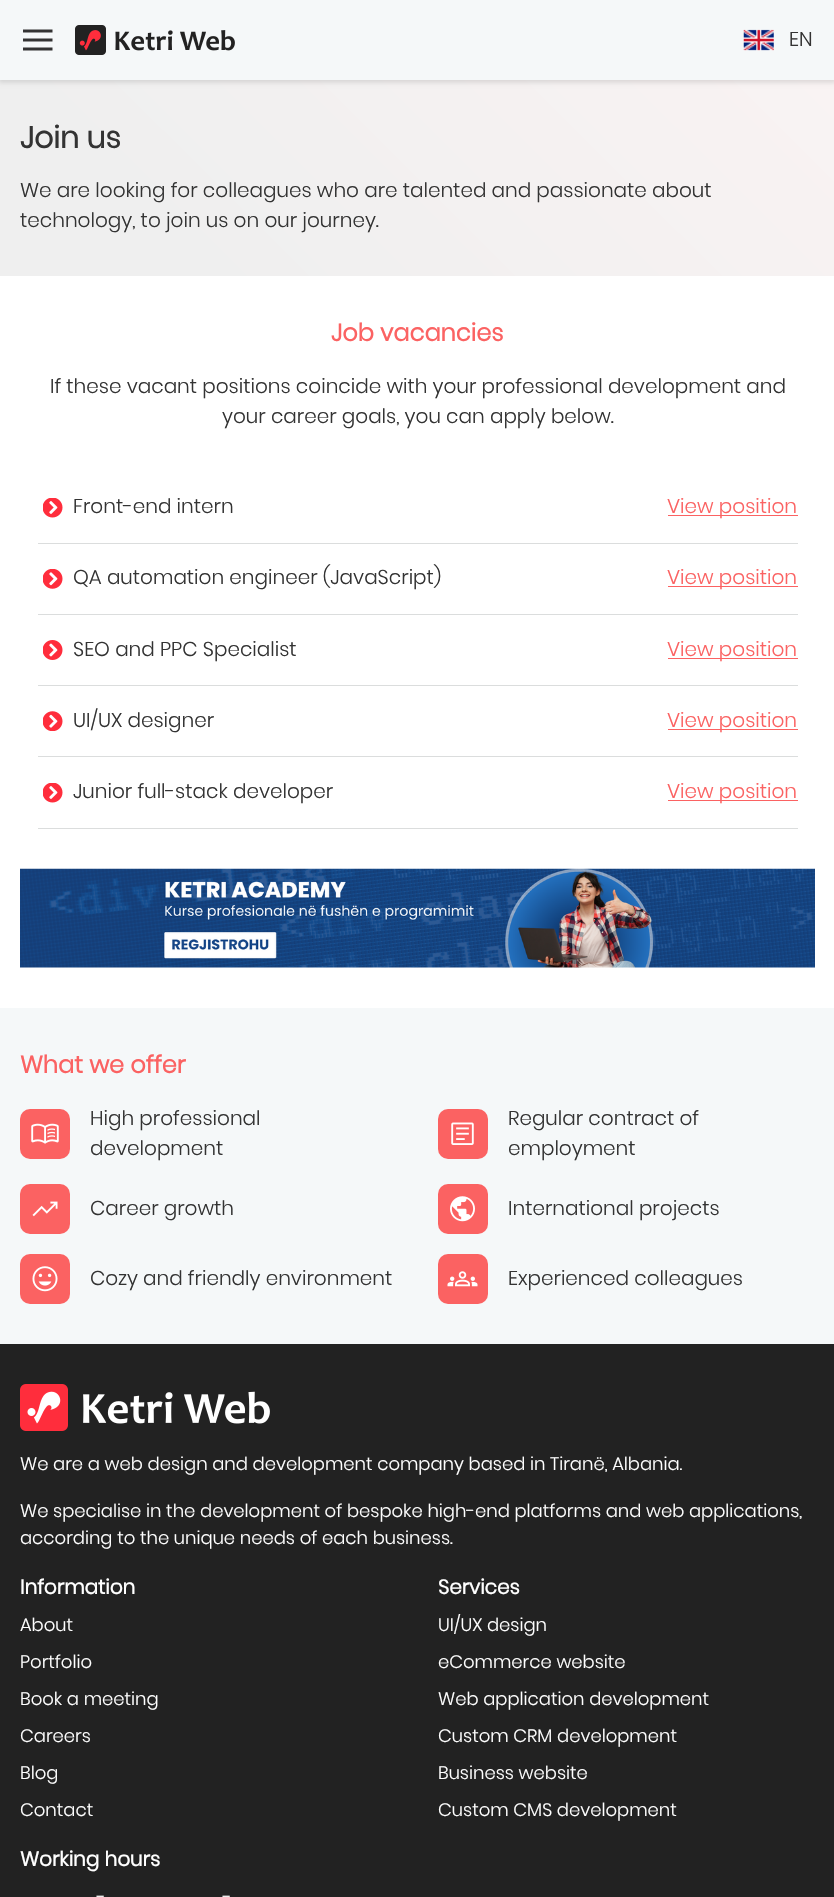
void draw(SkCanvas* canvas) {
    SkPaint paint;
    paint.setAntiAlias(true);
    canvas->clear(0xFFFFFFFF);
    {
        const SkColor colors[] = {0xFFEFEFEF, 0xFFF9F3F3};
        const float stops[] = {0.2f, 1};
        const SkPoint ends[] = {{160, 436}, {675, -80}};
        paint.setShader(SkGradientShader::MakeLinear(ends, colors, stops, 2, SkTileMode::kClamp));
        paint.setAlpha(255);
    }
    canvas->drawRect(SkRect::MakeXYWH(0, 80, 834, 196), paint);
    paint.setShader(nullptr);
    paint.setColor(0x1A000000);
    paint.setMaskFilter(SkMaskFilter::MakeBlur(kNormal_SkBlurStyle, 2));
    canvas->drawRect(SkRect::MakeXYWH(-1, 1, 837, 82), paint);
    paint.setMaskFilter(nullptr);
    paint.setColor(0xFFF5F8F9);
    canvas->drawRect(SkRect::MakeXYWH(0, 0, 834, 80), paint);
    canvas->save();
    canvas->clipRect(SkRect::MakeXYWH(23, 28, 30, 25));
    paint.setStyle(SkPaint::kStroke_Style);
    paint.setStrokeWidth(2.9f);
    paint.setColor(0xFF333333);
    canvas->drawPath(SkPathBuilder().moveTo(22.5f, 31).lineTo(52.5f, 31).moveTo(22.5f, 40).lineTo(52.5f, 40).moveTo(22.5f, 49).lineTo(52.5f, 49).detach(), paint);
    canvas->restore();
    canvas->drawImageRect(SkImages::DeferredFromEncodedData(SkData::MakeFromFileName("img1.png")), SkRect::MakeXYWH(75, 25, 160, 30), SkSamplingOptions());
    canvas->drawImageRect(SkImages::DeferredFromEncodedData(SkData::MakeFromFileName("img2.png")), SkRect::MakeXYWH(743, 29, 31, 22), SkSamplingOptions());
    SkFont font1(fontMgr->matchFamilyStyle("Poppins", SkFontStyle(300, SkFontStyle::kNormal_Width, SkFontStyle::kUpright_Slant)), 20);
    font1.setSubpixel(true);
    paint.setStyle(SkPaint::kFill_Style);
    canvas->drawString("EN", 789, 46, font1, paint);
    SkFont font2(fontMgr->matchFamilyStyle("Poppins", SkFontStyle::Bold()), 30);
    font2.setSubpixel(true);
    canvas->drawString("Join us", 20, 148, font2, paint);
    canvas->drawString("We are looking for colleagues who are talented and passionate about", 20, 197, font1, paint);
    canvas->drawString("technology, to join us on our journey.", 20, 227, font1, paint);
    SkFont font3(fontMgr->matchFamilyStyle("Poppins", SkFontStyle::Bold()), 24);
    font3.setSubpixel(true);
    paint.setColor(0xFFFB6262);
    canvas->drawString("Job vacancies", 331, 341, font3, paint);
    paint.setColor(0xFF333333);
    canvas->drawString("If these vacant positions coincide with your professional development and", 50, 393, font1, paint);
    canvas->drawString("your career goals, you can apply below.", 222, 423, font1, paint);
    paint.setColor(0xFFDBDDDD);
    canvas->drawRect(SkRect::MakeXYWH(38, 543, 760, 1), paint);
    canvas->drawImageRect(SkImages::DeferredFromEncodedData(SkData::MakeFromFileName("img3.png")), SkRect::MakeXYWH(43, 498, 20, 20), SkSamplingOptions());
    paint.setColor(0xFF333333);
    canvas->drawString("Front-end intern", 73, 513, font1, paint);
    paint.setColor(0xFFFB6262);
    canvas->drawRect(SkRect::MakeXYWH(668, 515, 130, 1), paint);
    canvas->drawString("View position", 667, 513, font1, paint);
    paint.setColor(0xFFDBDDDD);
    canvas->drawRect(SkRect::MakeXYWH(38, 614, 760, 1), paint);
    canvas->drawImageRect(SkImages::DeferredFromEncodedData(SkData::MakeFromFileName("img4.png")), SkRect::MakeXYWH(43, 569, 20, 20), SkSamplingOptions());
    paint.setColor(0xFF333333);
    canvas->drawString("QA automation engineer (JavaScript)", 73, 584, font1, paint);
    paint.setColor(0xFFFB6262);
    canvas->drawRect(SkRect::MakeXYWH(668, 586, 130, 1), paint);
    canvas->drawString("View position", 667, 584, font1, paint);
    paint.setColor(0xFFDBDDDD);
    canvas->drawRect(SkRect::MakeXYWH(38, 685, 760, 1), paint);
    canvas->drawImageRect(SkImages::DeferredFromEncodedData(SkData::MakeFromFileName("img5.png")), SkRect::MakeXYWH(43, 640, 20, 20), SkSamplingOptions());
    paint.setColor(0xFF333333);
    canvas->drawString("SEO and PPC Specialist", 73, 656, font1, paint);
    paint.setColor(0xFFFB6262);
    canvas->drawRect(SkRect::MakeXYWH(668, 658, 130, 1), paint);
    canvas->drawString("View position", 667, 656, font1, paint);
    paint.setColor(0xFFDBDDDD);
    canvas->drawRect(SkRect::MakeXYWH(38, 756, 760, 1), paint);
    canvas->drawImageRect(SkImages::DeferredFromEncodedData(SkData::MakeFromFileName("img6.png")), SkRect::MakeXYWH(43, 711, 20, 20), SkSamplingOptions());
    paint.setColor(0xFF333333);
    canvas->drawString("UI/UX designer", 73, 727, font1, paint);
    paint.setColor(0xFFFB6262);
    canvas->drawRect(SkRect::MakeXYWH(668, 729, 130, 1), paint);
    canvas->drawString("View position", 667, 727, font1, paint);
    paint.setColor(0xFFDBDDDD);
    canvas->drawRect(SkRect::MakeXYWH(38, 828, 760, 1), paint);
    canvas->drawImageRect(SkImages::DeferredFromEncodedData(SkData::MakeFromFileName("img3.png")), SkRect::MakeXYWH(43, 783, 20, 20), SkSamplingOptions());
    paint.setColor(0xFF333333);
    canvas->drawString("Junior full-stack developer", 73, 798, font1, paint);
    paint.setColor(0xFFFB6262);
    canvas->drawRect(SkRect::MakeXYWH(668, 800, 130, 1), paint);
    canvas->drawString("View position", 667, 798, font1, paint);
    canvas->drawImageRect(SkImages::DeferredFromEncodedData(SkData::MakeFromFileName("img7.png")), SkRect::MakeXYWH(20, 868, 795, 100), SkSamplingOptions());
    paint.setColor(0xFFF5F8F9);
    canvas->drawRect(SkRect::MakeXYWH(0, 1008, 834, 336), paint);
    paint.setColor(0xFFFB6262);
    canvas->drawString("What we offer", 20, 1073, font3, paint);
    canvas->drawRoundRect(SkRect::MakeXYWH(20, 1109, 50, 50), 10, 10, paint);
    canvas->drawImageRect(SkImages::DeferredFromEncodedData(SkData::MakeFromFileName("img8.png")), SkRect::MakeXYWH(31, 1123, 28, 21), SkSamplingOptions());
    paint.setColor(0xFF333333);
    canvas->drawString("High professional", 90, 1125, font1, paint);
    canvas->drawString("development", 90, 1155, font1, paint);
    paint.setColor(0xFFFB6262);
    canvas->drawRoundRect(SkRect::MakeXYWH(438, 1109, 50, 50), 10, 10, paint);
    canvas->drawImageRect(SkImages::DeferredFromEncodedData(SkData::MakeFromFileName("img9.png")), SkRect::MakeXYWH(451, 1122, 23, 23), SkSamplingOptions());
    paint.setColor(0xFF333333);
    canvas->drawString("Regular contract of", 508, 1125, font1, paint);
    canvas->drawString("employment", 508, 1155, font1, paint);
    paint.setColor(0xFFFB6262);
    canvas->drawRoundRect(SkRect::MakeXYWH(20, 1184, 50, 50), 10, 10, paint);
    canvas->drawImageRect(SkImages::DeferredFromEncodedData(SkData::MakeFromFileName("img10.png")), SkRect::MakeXYWH(32, 1201, 26, 16), SkSamplingOptions());
    paint.setColor(0xFF333333);
    canvas->drawString("Career growth", 90, 1215, font1, paint);
    paint.setColor(0xFFFB6262);
    canvas->drawRoundRect(SkRect::MakeXYWH(438, 1184, 50, 50), 10, 10, paint);
    canvas->drawImageRect(SkImages::DeferredFromEncodedData(SkData::MakeFromFileName("img11.png")), SkRect::MakeXYWH(450, 1196, 25, 26), SkSamplingOptions());
    paint.setColor(0xFF333333);
    canvas->drawString("International projects", 508, 1215, font1, paint);
    paint.setColor(0xFFFB6262);
    canvas->drawRoundRect(SkRect::MakeXYWH(20, 1254, 50, 50), 10, 10, paint);
    canvas->drawImageRect(SkImages::DeferredFromEncodedData(SkData::MakeFromFileName("img12.png")), SkRect::MakeXYWH(32, 1266, 26, 26), SkSamplingOptions());
    paint.setColor(0xFF333333);
    canvas->drawString("Cozy and friendly environment", 90, 1285, font1, paint);
    paint.setColor(0xFFFB6262);
    canvas->drawRoundRect(SkRect::MakeXYWH(438, 1254, 50, 50), 10, 10, paint);
    canvas->drawImageRect(SkImages::DeferredFromEncodedData(SkData::MakeFromFileName("img13.png")), SkRect::MakeXYWH(447, 1271, 31, 16), SkSamplingOptions());
    paint.setColor(0xFF333333);
    canvas->drawString("Experienced colleagues", 508, 1285, font1, paint);
    paint.setColor(0xFF222222);
    canvas->drawRect(SkRect::MakeXYWH(0, 1344, 834, 553), paint);
    canvas->drawImageRect(SkImages::DeferredFromEncodedData(SkData::MakeFromFileName("img14.png")), SkRect::MakeXYWH(20, 1384, 250, 47), SkSamplingOptions());
    SkFont font4(fontMgr->matchFamilyStyle("Poppins", SkFontStyle(300, SkFontStyle::kNormal_Width, SkFontStyle::kUpright_Slant)), 18);
    font4.setSubpixel(true);
    paint.setColor(0xFFFFFFFF);
    canvas->drawString("We are a web design and development company based in Tiranë, Albania.", 20, 1470, font4, paint);
    canvas->drawString("We specialise in the development of bespoke high-end platforms and web applications,", 20, 1517, font4, paint);
    canvas->drawString("according to the unique needs of each business.", 20, 1544, font4, paint);
    SkFont font5(fontMgr->matchFamilyStyle("Poppins", SkFontStyle::Bold()), 20);
    font5.setSubpixel(true);
    canvas->drawString("Information", 20, 1594, font5, paint);
    canvas->drawString("About", 20, 1631, font4, paint);
    canvas->drawString("Portfolio", 20, 1668, font4, paint);
    canvas->drawString("Book a meeting", 20, 1705, font4, paint);
    canvas->drawString("Careers", 20, 1742, font4, paint);
    canvas->drawString("Blog", 20, 1779, font4, paint);
    canvas->drawString("Contact", 20, 1816, font4, paint);
    canvas->drawString("Services", 438, 1594, font5, paint);
    canvas->drawString("UI/UX design", 438, 1631, font4, paint);
    canvas->drawString("eCommerce website", 438, 1668, font4, paint);
    canvas->drawString("Web application development", 438, 1705, font4, paint);
    canvas->drawString("Custom CRM development", 438, 1742, font4, paint);
    canvas->drawString("Business website", 438, 1779, font4, paint);
    canvas->drawString("Custom CMS development", 438, 1816, font4, paint);
    canvas->drawString("Working hours", 20, 1866, font5, paint);
    canvas->drawString("-", 97, 1903, font4, paint);
    canvas->drawString("-", 223, 1903, font4, paint);
}
